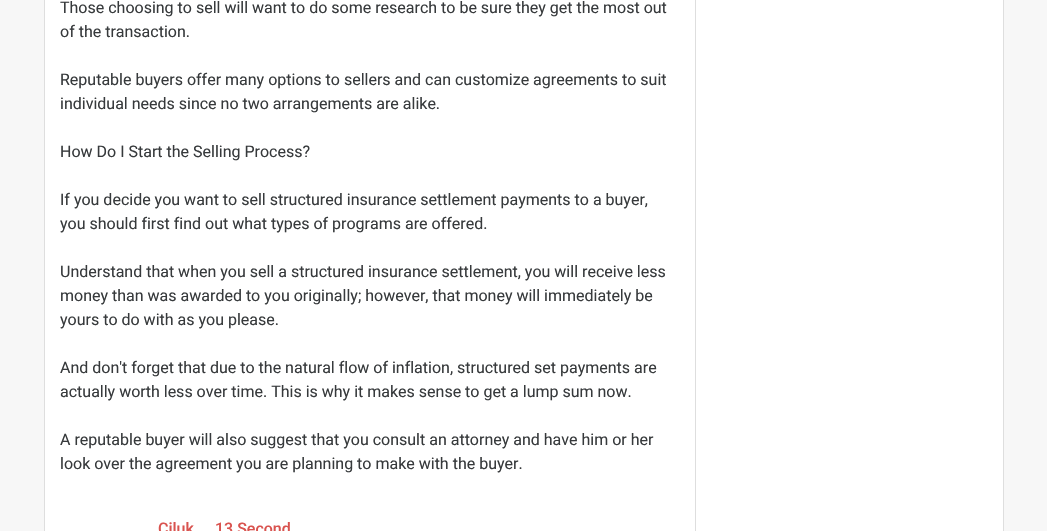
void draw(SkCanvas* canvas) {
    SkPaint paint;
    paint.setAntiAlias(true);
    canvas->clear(0xFFF7F7F7);
    paint.setColor(0xFFDEDEDE);
    canvas->drawRect(SkRect::MakeXYWH(1003, 0, 1, 531), paint);
    canvas->drawRect(SkRect::MakeXYWH(44, 0, 1, 531), paint);
    paint.setColor(0xFFFFFFFF);
    canvas->drawRect(SkRect::MakeXYWH(45, 0, 958, 531), paint);
    paint.setColor(0xFFDEDEDE);
    canvas->drawRect(SkRect::MakeXYWH(695, 0, 1, 531), paint);
    SkFont font1(fontMgr->matchFamilyStyle("Roboto", SkFontStyle::Normal()), 16);
    font1.setSubpixel(true);
    paint.setColor(0xFF373A3C);
    canvas->drawString("Those choosing to sell will want to do some research to be sure they get the most out", 60, 13, font1, paint);
    canvas->drawString("of the transaction.", 60, 37, font1, paint);
    canvas->drawString("Reputable buyers offer many options to sellers and can customize agreements to suit", 60, 85, font1, paint);
    canvas->drawString("individual needs since no two arrangements are alike.", 60, 109, font1, paint);
    canvas->drawString("How Do I Start the Selling Process?", 60, 157, font1, paint);
    canvas->drawString("If you decide you want to sell structured insurance settlement payments to a buyer,", 60, 205, font1, paint);
    canvas->drawString("you should first find out what types of programs are offered.", 60, 229, font1, paint);
    canvas->drawString("Understand that when you sell a structured insurance settlement, you will receive less", 60, 277, font1, paint);
    canvas->drawString("money than was awarded to you originally; however, that money will immediately be", 60, 301, font1, paint);
    canvas->drawString("yours to do with as you please.", 60, 325, font1, paint);
    canvas->drawString("And don't forget that due to the natural flow of inflation, structured set payments are", 60, 373, font1, paint);
    canvas->drawString("actually worth less over time. This is why it makes sense to get a lump sum now.", 60, 397, font1, paint);
    canvas->drawString("A reputable buyer will also suggest that you consult an attorney and have him or her", 60, 445, font1, paint);
    canvas->drawString("look over the agreement you are planning to make with the buyer.", 60, 469, font1, paint);
    SkFont font2(fontMgr->matchFamilyStyle("Roboto", SkFontStyle(500, SkFontStyle::kNormal_Width, SkFontStyle::kUpright_Slant)), 16);
    font2.setSubpixel(true);
    paint.setColor(0xFFD9534F);
    canvas->drawString("Ciluk", 158, 534, font2, paint);
    canvas->drawString("13 Second", 215, 534, font2, paint);
}
